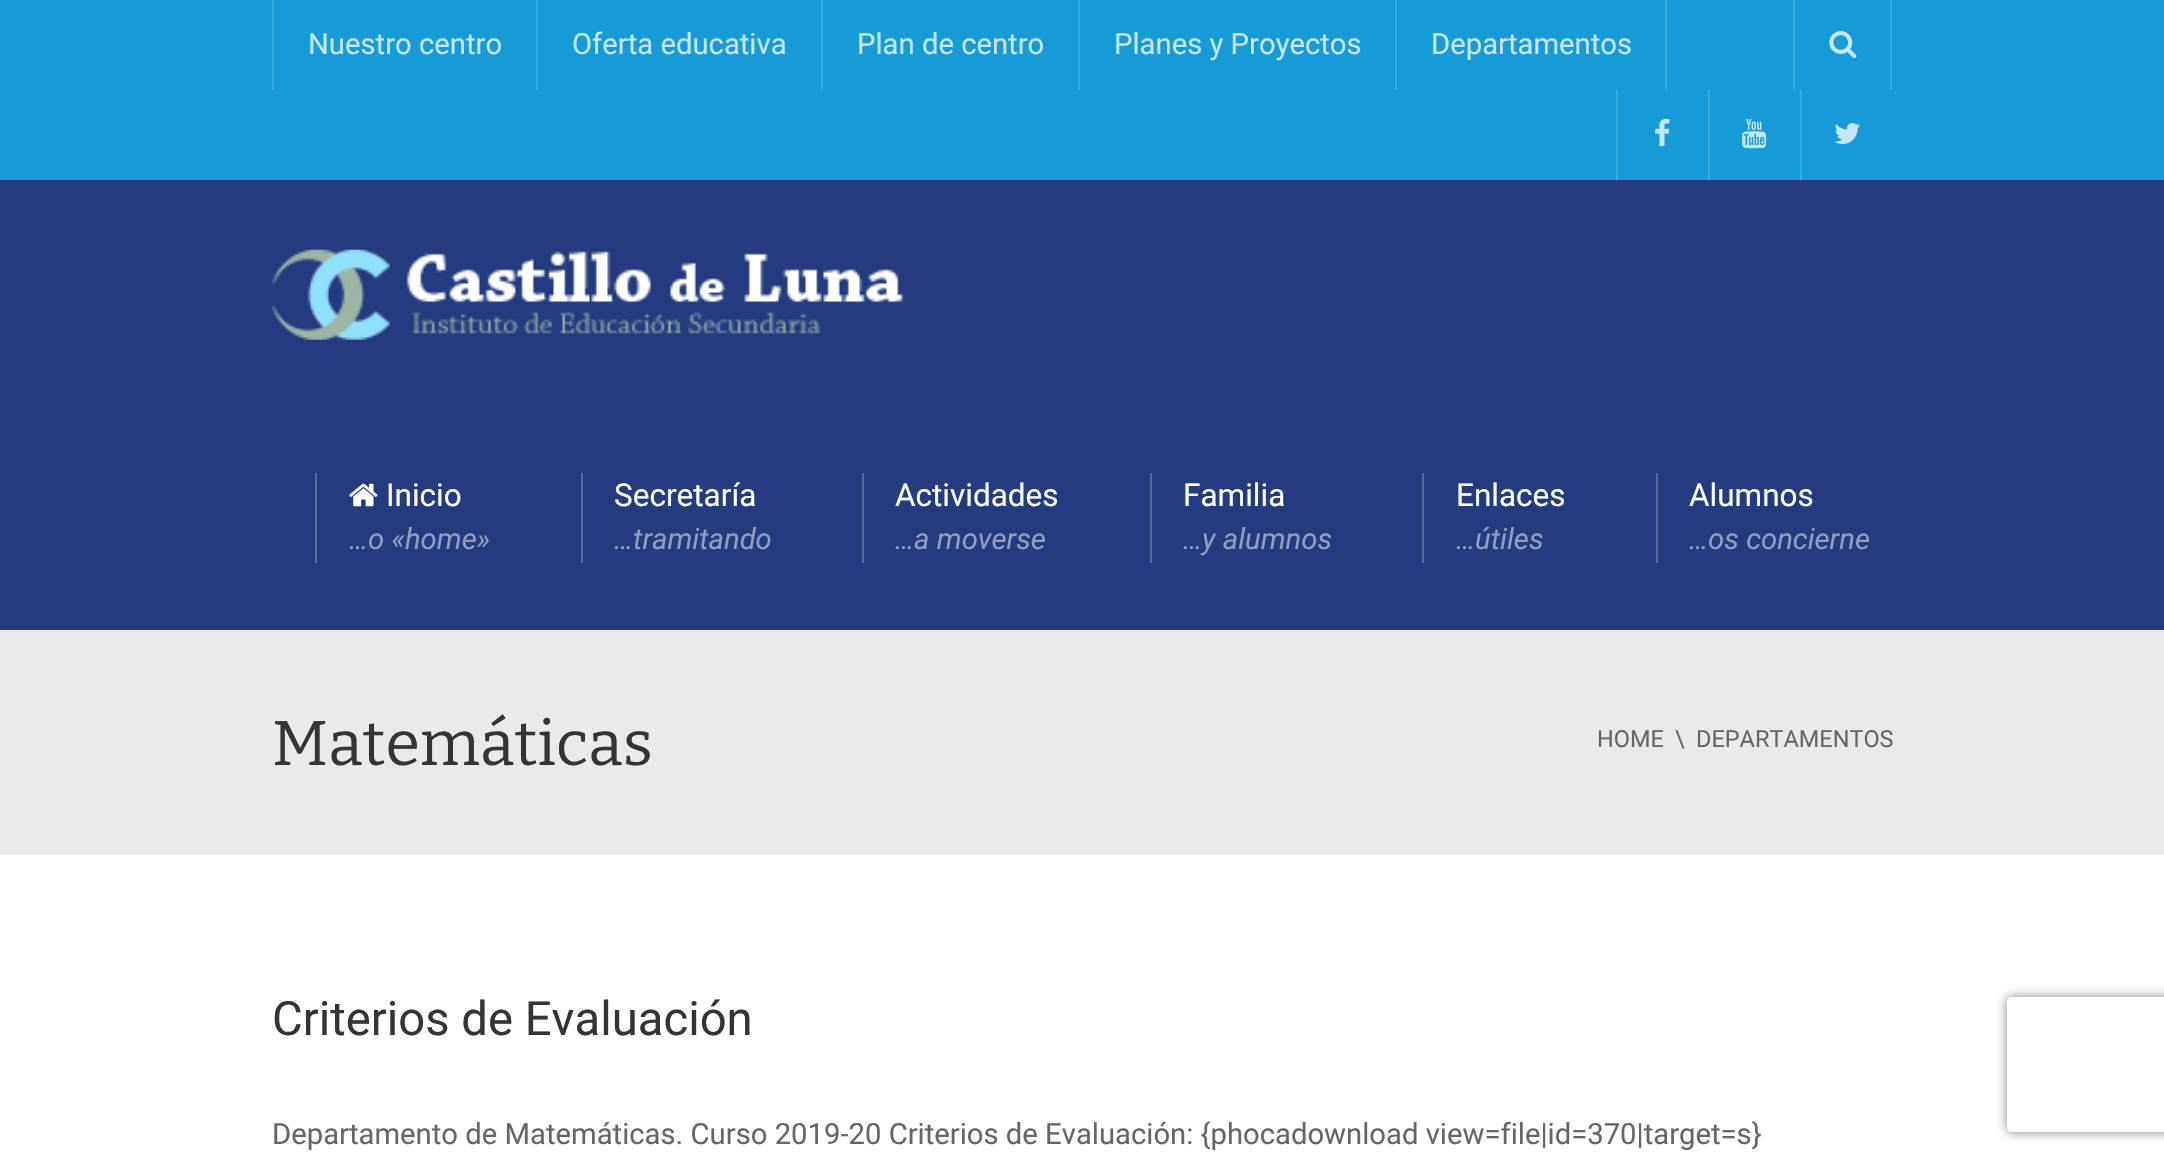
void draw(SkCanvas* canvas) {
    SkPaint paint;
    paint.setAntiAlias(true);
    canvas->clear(0xFFFFFFFF);
    paint.setColor(0xFF179BD7);
    canvas->drawRect(SkRect::MakeXYWH(0, 0, 2164, 180), paint);
    paint.setColor(0xFF3AAADD);
    canvas->drawRect(SkRect::MakeXYWH(272, 0, 2, 90), paint);
    SkFont font1(fontMgr->matchFamilyStyle("Roboto", SkFontStyle::Normal()), 29.25f);
    font1.setSubpixel(true);
    paint.setColor(0xFFC5E6F5);
    canvas->drawString("Nuestro centro", 308, 54, font1, paint);
    paint.setColor(0xFF3AAADD);
    canvas->drawRect(SkRect::MakeXYWH(536, 0, 2, 90), paint);
    paint.setColor(0xFFC5E6F5);
    canvas->drawString("Oferta educativa", 572, 54, font1, paint);
    paint.setColor(0xFF3AAADD);
    canvas->drawRect(SkRect::MakeXYWH(821, 0, 2, 90), paint);
    paint.setColor(0xFFC5E6F5);
    canvas->drawString("Plan de centro", 857, 54, font1, paint);
    paint.setColor(0xFF3AAADD);
    canvas->drawRect(SkRect::MakeXYWH(1078, 0, 2, 90), paint);
    paint.setColor(0xFFC5E6F5);
    canvas->drawString("Planes y Proyectos", 1114, 54, font1, paint);
    paint.setColor(0xFF3AAADD);
    canvas->drawRect(SkRect::MakeXYWH(1665, 0, 2, 90), paint);
    canvas->drawRect(SkRect::MakeXYWH(1395, 0, 2, 90), paint);
    paint.setColor(0xFFC5E6F5);
    canvas->drawString("Departamentos", 1431, 54, font1, paint);
    paint.setColor(0xFF3AAADD);
    canvas->drawRect(SkRect::MakeXYWH(1890, 0, 2, 90), paint);
    canvas->drawRect(SkRect::MakeXYWH(1793, 0, 2, 90), paint);
    canvas->drawImageRect(SkImages::DeferredFromEncodedData(SkData::MakeFromFileName("img1.png")), SkRect::MakeXYWH(1829, 31, 28, 28), SkSamplingOptions());
    canvas->drawRect(SkRect::MakeXYWH(1616, 90, 2, 90), paint);
    canvas->drawImageRect(SkImages::DeferredFromEncodedData(SkData::MakeFromFileName("img2.png")), SkRect::MakeXYWH(1655, 118, 15, 29), SkSamplingOptions());
    canvas->drawRect(SkRect::MakeXYWH(1708, 90, 2, 90), paint);
    canvas->drawImageRect(SkImages::DeferredFromEncodedData(SkData::MakeFromFileName("img3.png")), SkRect::MakeXYWH(1741, 118, 26, 31), SkSamplingOptions());
    canvas->drawRect(SkRect::MakeXYWH(1800, 90, 2, 90), paint);
    canvas->drawImageRect(SkImages::DeferredFromEncodedData(SkData::MakeFromFileName("img4.png")), SkRect::MakeXYWH(1834, 123, 26, 21), SkSamplingOptions());
    paint.setColor(0xFF253B80);
    canvas->drawRect(SkRect::MakeXYWH(0, 180, 2164, 450), paint);
    canvas->drawImageRect(SkImages::DeferredFromEncodedData(SkData::MakeFromFileName("img5.png")), SkRect::MakeXYWH(272, 249, 631, 91), SkSamplingOptions());
    paint.setColor(0xFF5C6CA0);
    canvas->drawRect(SkRect::MakeXYWH(315, 473, 2, 90), paint);
    canvas->drawImageRect(SkImages::DeferredFromEncodedData(SkData::MakeFromFileName("img6.png")), SkRect::MakeXYWH(349, 483, 29, 24), SkSamplingOptions());
    SkFont font2(fontMgr->matchFamilyStyle("Roboto", SkFontStyle::Normal()), 31.5f);
    font2.setSubpixel(true);
    paint.setColor(0xFFFFFFFF);
    canvas->drawString("Inicio", 386, 506, font2, paint);
    SkFont font3(fontMgr->matchFamilyStyle("Roboto", SkFontStyle::Italic()), 29.25f);
    font3.setSubpixel(true);
    paint.setColor(0xFF929DC0);
    canvas->drawString("…o «home»", 349, 549, font3, paint);
    paint.setColor(0xFF5C6CA0);
    canvas->drawRect(SkRect::MakeXYWH(581, 473, 2, 90), paint);
    paint.setColor(0xFFFFFFFF);
    canvas->drawString("Secretaría", 614, 506, font2, paint);
    paint.setColor(0xFF929DC0);
    canvas->drawString("…tramitando", 614, 549, font3, paint);
    paint.setColor(0xFF5C6CA0);
    canvas->drawRect(SkRect::MakeXYWH(862, 473, 2, 90), paint);
    paint.setColor(0xFFFFFFFF);
    canvas->drawString("Actividades", 895, 506, font2, paint);
    paint.setColor(0xFF929DC0);
    canvas->drawString("…a moverse", 895, 549, font3, paint);
    paint.setColor(0xFF5C6CA0);
    canvas->drawRect(SkRect::MakeXYWH(1150, 473, 2, 90), paint);
    paint.setColor(0xFFFFFFFF);
    canvas->drawString("Familia", 1183, 506, font2, paint);
    paint.setColor(0xFF929DC0);
    canvas->drawString("…y alumnos", 1183, 549, font3, paint);
    paint.setColor(0xFF5C6CA0);
    canvas->drawRect(SkRect::MakeXYWH(1422, 473, 2, 90), paint);
    paint.setColor(0xFFFFFFFF);
    canvas->drawString("Enlaces", 1456, 506, font2, paint);
    paint.setColor(0xFF929DC0);
    canvas->drawString("…útiles", 1456, 549, font3, paint);
    paint.setColor(0xFF5C6CA0);
    canvas->drawRect(SkRect::MakeXYWH(1656, 473, 2, 90), paint);
    paint.setColor(0xFFFFFFFF);
    canvas->drawString("Alumnos", 1689, 506, font2, paint);
    paint.setColor(0xFF929DC0);
    canvas->drawString("…os concierne", 1689, 549, font3, paint);
    paint.setColor(0xFFEAEAEA);
    canvas->drawRect(SkRect::MakeXYWH(0, 630, 2164, 225), paint);
    SkFont font4(fontMgr->matchFamilyStyle("Bitter", SkFontStyle(100, SkFontStyle::kNormal_Width, SkFontStyle::kUpright_Slant)), 63);
    font4.setSubpixel(true);
    paint.setColor(0xFF343434);
    canvas->drawString("Matemáticas", 272, 765, font4, paint);
    SkFont font5(fontMgr->matchFamilyStyle("Roboto", SkFontStyle::Normal()), 23.5f);
    font5.setSubpixel(true);
    paint.setColor(0xFF666666);
    canvas->drawString("HOME", 1597, 747, font5, paint);
    canvas->drawString("\\", 1675, 747, font5, paint);
    canvas->drawString("DEPARTAMENTOS", 1696, 747, font5, paint);
    SkFont font6(fontMgr->matchFamilyStyle("Roboto", SkFontStyle::Normal()), 47.25f);
    font6.setSubpixel(true);
    paint.setColor(0xFF343434);
    canvas->drawString("Criterios de Evaluación", 272, 1035, font6, paint);
    paint.setColor(0xFF666666);
    canvas->drawString("Departamento de Matemáticas. Curso 2019-20 Criterios de Evaluación: {phocadownload view=file|id=370|target=s}", 272, 1144, font1, paint);
    canvas->save();
    canvas->clipPath(SkPathBuilder(SkPathFillType::kEvenOdd).moveTo(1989, 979).lineTo(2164, 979).lineTo(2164, 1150).lineTo(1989, 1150).close().moveTo(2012, 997).lineTo(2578, 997).cubicTo(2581, 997, 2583, 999, 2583, 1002).lineTo(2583, 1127).cubicTo(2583, 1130, 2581, 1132, 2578, 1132).lineTo(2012, 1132).cubicTo(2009, 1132, 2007, 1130, 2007, 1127).lineTo(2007, 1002).cubicTo(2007, 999, 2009, 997, 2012, 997).close().detach(), true);
    paint.setColor(0xFF808080);
    paint.setMaskFilter(SkMaskFilter::MakeBlur(kNormal_SkBlurStyle, 5.5f));
    canvas->drawRoundRect(SkRect::MakeXYWH(2007, 997, 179, 135), 5, 5, paint);
    paint.setMaskFilter(nullptr);
    canvas->restore();
}
